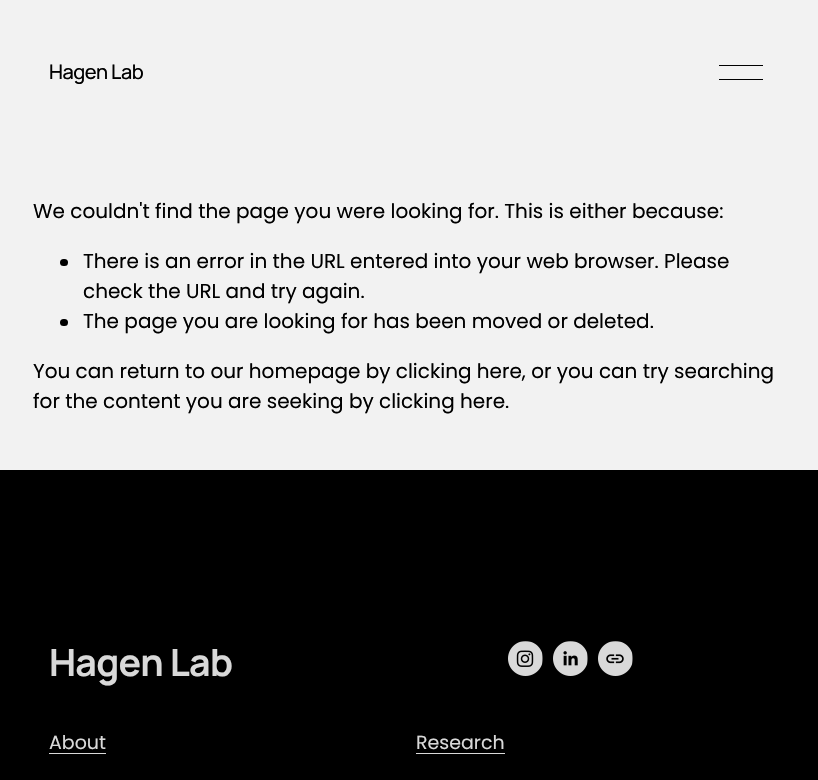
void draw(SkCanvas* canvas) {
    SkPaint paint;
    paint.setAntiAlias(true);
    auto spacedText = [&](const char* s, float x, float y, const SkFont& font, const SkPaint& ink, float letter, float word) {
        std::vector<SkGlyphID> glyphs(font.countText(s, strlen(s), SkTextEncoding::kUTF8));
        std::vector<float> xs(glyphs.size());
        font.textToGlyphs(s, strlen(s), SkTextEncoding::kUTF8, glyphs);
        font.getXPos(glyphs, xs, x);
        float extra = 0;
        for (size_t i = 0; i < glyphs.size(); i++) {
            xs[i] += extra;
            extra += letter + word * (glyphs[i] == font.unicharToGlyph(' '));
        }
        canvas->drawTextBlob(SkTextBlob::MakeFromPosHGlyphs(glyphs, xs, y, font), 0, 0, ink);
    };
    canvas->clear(0xFFF2F2F2);
    SkFont font1(fontMgr->matchFamilyStyle("Manrope", SkFontStyle(500, SkFontStyle::kNormal_Width, SkFontStyle::kUpright_Slant)), 20);
    font1.setSubpixel(true);
    paint.setColor(0xFF000000);
    spacedText("Hagen Lab", 49, 79, font1, paint, -0.5f, 0);
    canvas->drawRect(SkRect::MakeXYWH(719, 65, 44, 1), paint);
    canvas->drawRect(SkRect::MakeXYWH(719, 79, 44, 1), paint);
    SkFont font2(fontMgr->matchFamilyStyle("Poppins", SkFontStyle::Normal()), 20);
    font2.setSubpixel(true);
    canvas->drawString("We couldn't find the page you were looking for. This is either because:", 33, 218, font2, paint);
    canvas->drawRoundRect(SkRect::MakeXYWH(60, 259, 8, 7), 3.5f, 3.5f, paint);
    canvas->drawString("There is an error in the URL entered into your web browser. Please", 83, 268, font2, paint);
    canvas->drawString("check the URL and try again.", 83, 298, font2, paint);
    canvas->drawRoundRect(SkRect::MakeXYWH(60, 319, 8, 7), 3.5f, 3.5f, paint);
    canvas->drawString("The page you are looking for has been moved or deleted.", 83, 328, font2, paint);
    canvas->drawString("You can return to our homepage by clicking here, or you can try searching", 33, 378, font2, paint);
    canvas->drawString("for the content you are seeking by clicking here.", 33, 408, font2, paint);
    canvas->drawRect(SkRect::MakeXYWH(0, 470, 818, 310), paint);
    SkFont font3(fontMgr->matchFamilyStyle("Manrope", SkFontStyle::Bold()), 37.5f);
    font3.setSubpixel(true);
    paint.setColor(0xFFD9D9D9);
    spacedText("Hagen Lab", 49, 676, font3, paint, -0.75f, 0);
    canvas->drawImageRect(SkImages::DeferredFromEncodedData(SkData::MakeFromFileName("img1.png")), SkRect::MakeXYWH(508, 641, 35, 35), SkSamplingOptions());
    canvas->drawImageRect(SkImages::DeferredFromEncodedData(SkData::MakeFromFileName("img2.png")), SkRect::MakeXYWH(553, 641, 35, 35), SkSamplingOptions());
    canvas->drawImageRect(SkImages::DeferredFromEncodedData(SkData::MakeFromFileName("img3.png")), SkRect::MakeXYWH(598, 641, 35, 35), SkSamplingOptions());
    SkFont font4(fontMgr->matchFamilyStyle("Poppins", SkFontStyle::Normal()), 19);
    font4.setSubpixel(true);
    canvas->drawString("About", 49, 749, font4, paint);
    canvas->drawRect(SkRect::MakeXYWH(49, 753, 57, 1), paint);
    canvas->drawString("Research", 416, 749, font4, paint);
    canvas->drawRect(SkRect::MakeXYWH(416, 753, 89, 1), paint);
}
